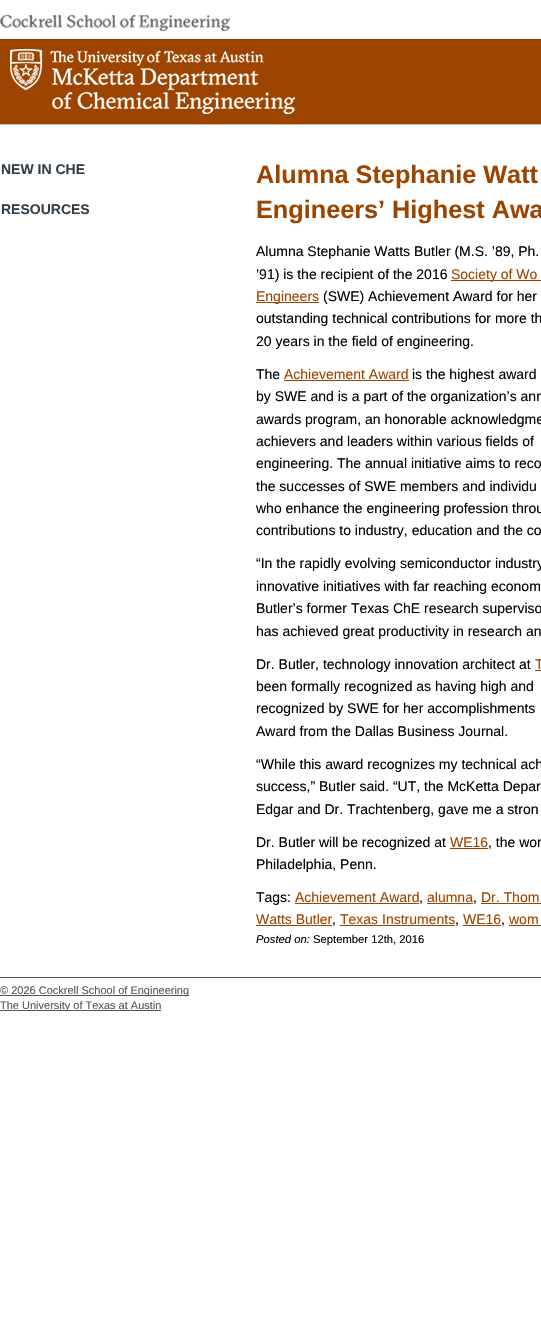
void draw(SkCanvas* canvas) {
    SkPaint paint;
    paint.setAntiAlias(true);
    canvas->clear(0xFFFFFFFF);
    canvas->drawImageRect(SkImages::DeferredFromEncodedData(SkData::MakeFromFileName("img1.png")), SkRect::MakeXYWH(0, 15, 230, 16), SkSamplingOptions());
    paint.setColor(0xFF9D4500);
    canvas->drawRect(SkRect::MakeXYWH(0, 39, 541, 85), paint);
    canvas->drawImageRect(SkImages::DeferredFromEncodedData(SkData::MakeFromFileName("img2.png")), SkRect::MakeXYWH(10, 49, 285, 65), SkSamplingOptions());
    paint.setColor(0xFFC4C4C4);
    canvas->drawRect(SkRect::MakeXYWH(0, 124, 541, 1), paint);
    SkFont font1(fontMgr->matchFamilyStyle("Liberation Sans", SkFontStyle::Bold()), 14);
    font1.setSubpixel(true);
    paint.setColor(0xFF333F48);
    canvas->drawString("NEW IN CHE", 1, 174, font1, paint);
    canvas->drawString("RESOURCES", 1, 214, font1, paint);
    SkFont font2(fontMgr->matchFamilyStyle("Liberation Sans", SkFontStyle::Bold()), 25.25f);
    font2.setSubpixel(true);
    paint.setColor(0xFF9D4500);
    canvas->drawString("Alumna Stephanie Watt", 256, 183, font2, paint);
    canvas->drawString("Engineers’ Highest Awa", 256, 218, font2, paint);
    SkFont font3(fontMgr->matchFamilyStyle("Liberation Sans", SkFontStyle::Normal()), 14);
    font3.setSubpixel(true);
    paint.setColor(0xFF000000);
    canvas->drawString("Alumna Stephanie Watts Butler (M.S. ’89, Ph.", 256, 256, font3, paint);
    canvas->drawString("’91) is the recipient of the 2016", 256, 279, font3, paint);
    paint.setColor(0xFF9D4500);
    canvas->drawRect(SkRect::MakeXYWH(451, 280, 90, 1), paint);
    canvas->drawString("Society of Wo", 451, 279, font3, paint);
    canvas->drawRect(SkRect::MakeXYWH(256, 302, 63, 1), paint);
    canvas->drawString("Engineers", 256, 301, font3, paint);
    paint.setColor(0xFF000000);
    canvas->drawString("(SWE) Achievement Award for her", 323, 301, font3, paint);
    canvas->drawString("outstanding technical contributions for more th", 256, 323, font3, paint);
    canvas->drawString("20 years in the field of engineering.", 256, 346, font3, paint);
    canvas->drawString("The", 256, 379, font3, paint);
    paint.setColor(0xFF9D4500);
    canvas->drawString("Achievement Award", 284, 379, font3, paint);
    canvas->drawRect(SkRect::MakeXYWH(284, 380, 125, 1), paint);
    paint.setColor(0xFF000000);
    canvas->drawString("is the highest award", 412, 379, font3, paint);
    canvas->drawString("by SWE and is a part of the organization’s ann", 256, 401, font3, paint);
    canvas->drawString("awards program, an honorable acknowledgme", 256, 424, font3, paint);
    canvas->drawString("achievers and leaders within various fields of", 256, 446, font3, paint);
    canvas->drawString("engineering. The annual initiative aims to reco", 256, 468, font3, paint);
    canvas->drawString("the successes of SWE members and individu", 256, 491, font3, paint);
    canvas->drawString("who enhance the engineering profession throu", 256, 513, font3, paint);
    canvas->drawString("contributions to industry, education and the co", 256, 535, font3, paint);
    canvas->drawString("“In the rapidly evolving semiconductor industry", 256, 568, font3, paint);
    canvas->drawString("innovative initiatives with far reaching econom", 256, 591, font3, paint);
    canvas->drawString("Butler’s former Texas ChE research superviso", 256, 613, font3, paint);
    canvas->drawString("has achieved great productivity in research an", 256, 636, font3, paint);
    canvas->drawString("Dr. Butler, technology innovation architect at", 256, 669, font3, paint);
    paint.setColor(0xFF9D4500);
    canvas->drawString("T", 535, 669, font3, paint);
    canvas->drawRect(SkRect::MakeXYWH(535, 670, 6, 1), paint);
    paint.setColor(0xFF000000);
    canvas->drawString("been formally recognized as having high and", 256, 691, font3, paint);
    canvas->drawString("recognized by SWE for her accomplishments", 256, 713, font3, paint);
    canvas->drawString("Award from the Dallas Business Journal.", 256, 736, font3, paint);
    canvas->drawString("“While this award recognizes my technical ach", 256, 769, font3, paint);
    canvas->drawString("success,” Butler said. “UT, the McKetta Depar", 256, 791, font3, paint);
    canvas->drawString("Edgar and Dr. Trachtenberg, gave me a stron", 256, 814, font3, paint);
    canvas->drawString("Dr. Butler will be recognized at", 256, 847, font3, paint);
    paint.setColor(0xFF9D4500);
    canvas->drawString("WE16", 450, 847, font3, paint);
    canvas->drawRect(SkRect::MakeXYWH(450, 848, 38, 1), paint);
    paint.setColor(0xFF000000);
    canvas->drawString(", the wor", 488, 847, font3, paint);
    canvas->drawString("Philadelphia, Penn.", 256, 869, font3, paint);
    canvas->drawString("Tags:", 256, 902, font3, paint);
    paint.setColor(0xFF9D4500);
    canvas->drawString("Achievement Award", 295, 902, font3, paint);
    canvas->drawRect(SkRect::MakeXYWH(295, 903, 124, 1), paint);
    paint.setColor(0xFF000000);
    canvas->drawString(",", 419, 902, font3, paint);
    paint.setColor(0xFF9D4500);
    canvas->drawString("alumna", 427, 902, font3, paint);
    canvas->drawRect(SkRect::MakeXYWH(427, 903, 46, 1), paint);
    paint.setColor(0xFF000000);
    canvas->drawString(",", 473, 902, font3, paint);
    paint.setColor(0xFF9D4500);
    canvas->drawString("Dr. Thom", 481, 902, font3, paint);
    canvas->drawRect(SkRect::MakeXYWH(481, 903, 60, 1), paint);
    canvas->drawString("Watts Butler", 256, 924, font3, paint);
    canvas->drawRect(SkRect::MakeXYWH(256, 925, 76, 1), paint);
    paint.setColor(0xFF000000);
    canvas->drawString(",", 332, 924, font3, paint);
    paint.setColor(0xFF9D4500);
    canvas->drawString("Texas Instruments", 340, 924, font3, paint);
    canvas->drawRect(SkRect::MakeXYWH(340, 925, 115, 1), paint);
    paint.setColor(0xFF000000);
    canvas->drawString(",", 455, 924, font3, paint);
    paint.setColor(0xFF9D4500);
    canvas->drawString("WE16", 463, 924, font3, paint);
    canvas->drawRect(SkRect::MakeXYWH(463, 925, 38, 1), paint);
    paint.setColor(0xFF000000);
    canvas->drawString(",", 501, 924, font3, paint);
    paint.setColor(0xFF9D4500);
    canvas->drawString("wom", 509, 924, font3, paint);
    canvas->drawRect(SkRect::MakeXYWH(509, 925, 32, 1), paint);
    SkFont font4(fontMgr->matchFamilyStyle("Liberation Sans", SkFontStyle::Italic()), 11.25f);
    font4.setSubpixel(true);
    paint.setColor(0xFF000000);
    canvas->drawString("Posted on:", 256, 943, font4, paint);
    SkFont font5(fontMgr->matchFamilyStyle("Liberation Sans", SkFontStyle::Normal()), 11.25f);
    font5.setSubpixel(true);
    canvas->drawString("September 12th, 2016", 313, 943, font5, paint);
    paint.setColor(0xFF555555);
    canvas->drawRect(SkRect::MakeXYWH(0, 977, 541, 1), paint);
    canvas->drawRect(SkRect::MakeXYWH(0, 995, 189, 1), paint);
    SkFont font6(fontMgr->matchFamilyStyle("Liberation Sans", SkFontStyle::Normal()), 11);
    font6.setSubpixel(true);
    canvas->drawString("© 2026 Cockrell School of Engineering", 0, 994, font6, paint);
    canvas->drawRect(SkRect::MakeXYWH(0, 1010, 161, 1), paint);
    canvas->drawString("The University of Texas at Austin", 0, 1009, font6, paint);
}
